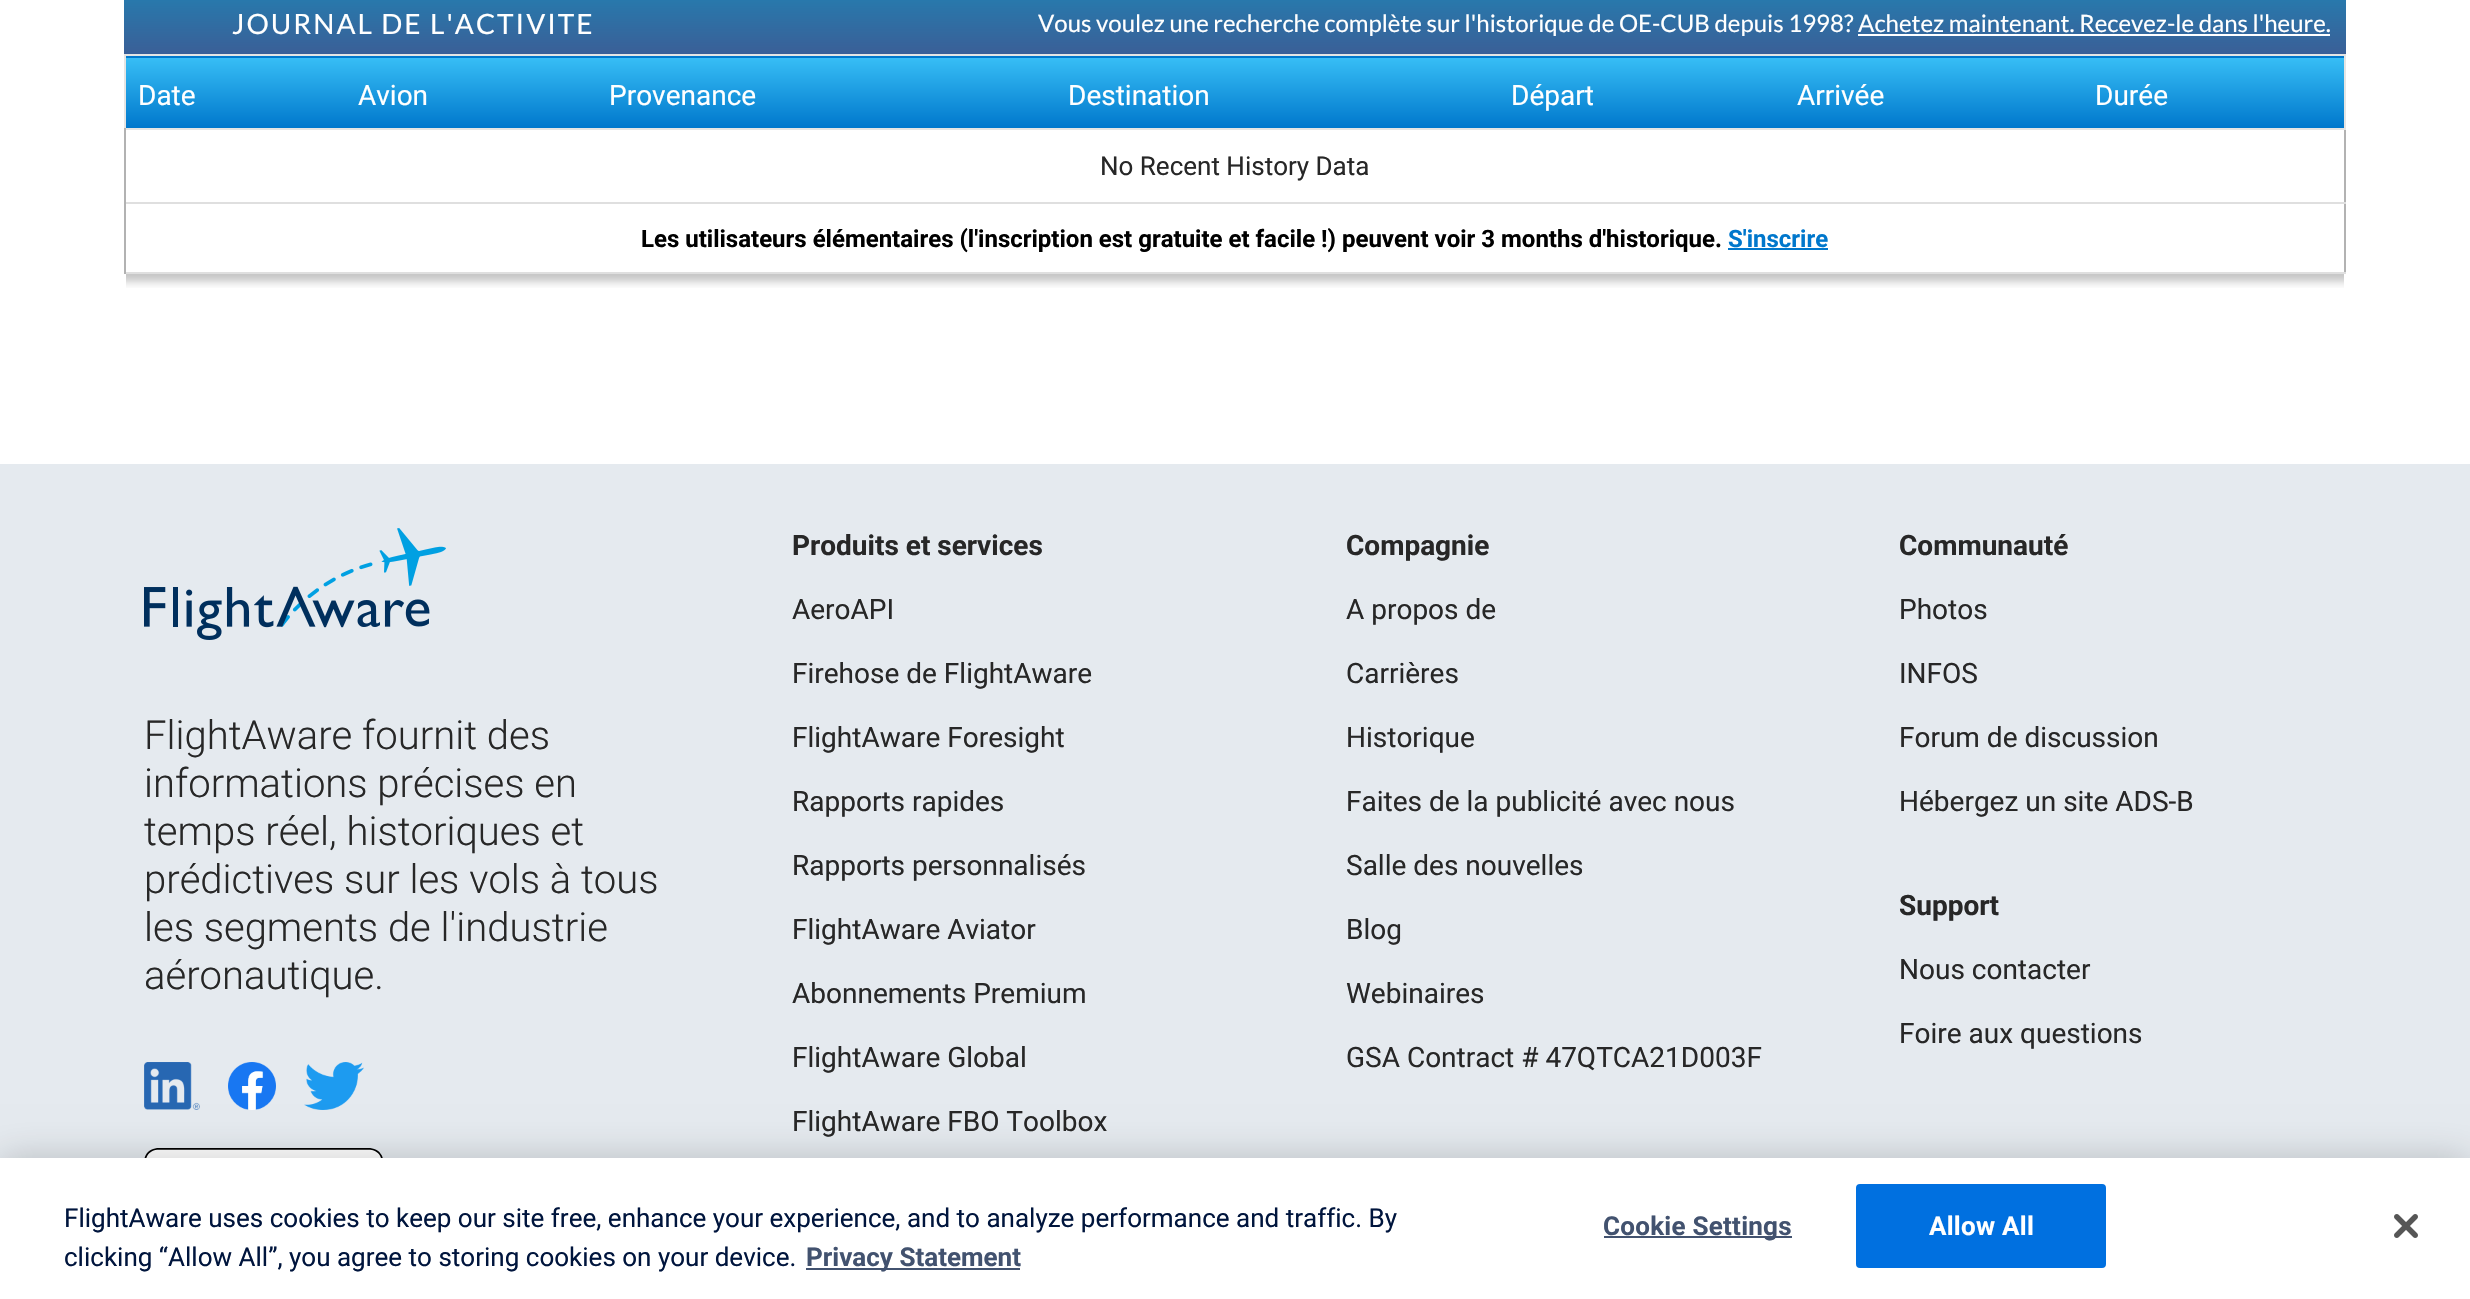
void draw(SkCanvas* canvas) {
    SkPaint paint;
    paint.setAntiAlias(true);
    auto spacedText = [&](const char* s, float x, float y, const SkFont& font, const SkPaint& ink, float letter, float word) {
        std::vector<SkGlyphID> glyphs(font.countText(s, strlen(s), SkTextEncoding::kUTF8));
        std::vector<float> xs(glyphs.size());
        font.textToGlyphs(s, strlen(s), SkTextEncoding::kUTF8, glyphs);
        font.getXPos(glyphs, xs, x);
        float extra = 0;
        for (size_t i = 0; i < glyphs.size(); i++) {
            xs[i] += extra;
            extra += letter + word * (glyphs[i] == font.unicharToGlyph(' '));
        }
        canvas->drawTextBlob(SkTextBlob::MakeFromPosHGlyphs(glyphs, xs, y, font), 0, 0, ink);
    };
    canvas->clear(0xFFFFFFFF);
    {
        const SkColor colors[] = {0xFF267BAE, 0xFF3A5F97};
        const float stops[] = {0, 1};
        const SkPoint ends[] = {{124, -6}, {124, 54}};
        paint.setShader(SkGradientShader::MakeLinear(ends, colors, stops, 2, SkTileMode::kClamp));
        paint.setAlpha(255);
    }
    canvas->drawRect(SkRect::MakeXYWH(124, 0, 2222, 54), paint);
    SkFont font1(fontMgr->matchFamilyStyle("Lato", SkFontStyle::Normal()), 28);
    font1.setSubpixel(true);
    paint.setShader(nullptr);
    paint.setColor(0xFFFFFFFF);
    spacedText("JOURNAL DE L'ACTIVITE", 232, 34, font1, paint, 2, 0);
    SkFont font2(fontMgr->matchFamilyStyle("Lato", SkFontStyle::Normal()), 24);
    font2.setSubpixel(true);
    canvas->drawString("Vous voulez une recherche complète sur l'historique de OE-CUB depuis 1998? Achetez maintenant. Recevez-le dans l'heure.", 1038, 32, font2, paint);
    canvas->drawRect(SkRect::MakeXYWH(1858, 34, 472, 2), paint);
    paint.setColor(0xFFB2B2B2);
    canvas->drawRect(SkRect::MakeXYWH(2344, 130, 2, 144), paint);
    {
        const SkColor colors[] = {0xFF37BDF5, 0xFF0077CC};
        const float stops[] = {0, 1};
        const SkPoint ends[] = {{126, -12}, {126, 58}};
        paint.setShader(SkGradientShader::MakeLinear(ends, colors, stops, 2, SkTileMode::kClamp));
        paint.setAlpha(255);
    }
    canvas->drawRect(SkRect::MakeXYWH(124, 56, 2222, 2), paint);
    {
        const SkColor colors[] = {0xFF37BDF5, 0xFF0077CC};
        const float stops[] = {0, 1};
        const SkPoint ends[] = {{126, 58}, {126, 128}};
        paint.setShader(SkGradientShader::MakeLinear(ends, colors, stops, 2, SkTileMode::kClamp));
        paint.setAlpha(255);
    }
    canvas->drawRect(SkRect::MakeXYWH(126, 58, 2218, 70), paint);
    paint.setShader(nullptr);
    paint.setColor(0xFFE5E5E4);
    canvas->drawRect(SkRect::MakeXYWH(124, 54, 2222, 2), paint);
    canvas->drawRect(SkRect::MakeXYWH(2344, 54, 2, 76), paint);
    canvas->drawRect(SkRect::MakeXYWH(124, 128, 2222, 2), paint);
    canvas->drawRect(SkRect::MakeXYWH(124, 54, 2, 76), paint);
    SkFont font3(fontMgr->matchFamilyStyle("Roboto", SkFontStyle::Normal()), 28);
    font3.setSubpixel(true);
    paint.setColor(0xFFFFFFFF);
    canvas->drawString("Date", 138, 105, font3, paint);
    canvas->drawString("Avion", 358, 105, font3, paint);
    canvas->drawString("Provenance", 609, 105, font3, paint);
    canvas->drawString("Destination", 1068, 105, font3, paint);
    canvas->drawString("Départ", 1511, 105, font3, paint);
    canvas->drawString("Arrivée", 1797, 105, font3, paint);
    canvas->drawString("Durée", 2095, 105, font3, paint);
    paint.setColor(0xFFDFDFDF);
    canvas->drawRect(SkRect::MakeXYWH(124, 202, 2222, 2), paint);
    SkFont font4(fontMgr->matchFamilyStyle("Roboto", SkFontStyle::Normal()), 26);
    font4.setSubpixel(true);
    paint.setColor(0xFF272727);
    canvas->drawString("No Recent History Data", 1100, 175, font4, paint);
    paint.setColor(0xFFDFDFDF);
    canvas->drawRect(SkRect::MakeXYWH(124, 272, 2222, 2), paint);
    paint.setColor(0xFFB2B2B2);
    canvas->drawRect(SkRect::MakeXYWH(124, 128, 2, 146), paint);
    SkFont font5(fontMgr->matchFamilyStyle("Roboto", SkFontStyle::Bold()), 24);
    font5.setSubpixel(true);
    paint.setColor(0xFF000000);
    canvas->drawString("Les utilisateurs élémentaires (l'inscription est gratuite et facile !) peuvent voir 3 months d'historique.", 641, 247, font5, paint);
    paint.setColor(0xFF0077CC);
    canvas->drawString("S'inscrire", 1728, 247, font5, paint);
    canvas->drawRect(SkRect::MakeXYWH(1728, 248, 100, 2), paint);
    canvas->drawImageRect(SkImages::DeferredFromEncodedData(SkData::MakeFromFileName("img1.png")), SkRect::MakeXYWH(126, 274, 2218, 14), SkSamplingOptions());
    paint.setColor(0xFFE5EAEF);
    canvas->drawRect(SkRect::MakeXYWH(0, 464, 2470, 694), paint);
    canvas->drawImageRect(SkImages::DeferredFromEncodedData(SkData::MakeFromFileName("img2.png")), SkRect::MakeXYWH(144, 528, 302, 112), SkSamplingOptions());
    SkFont font6(fontMgr->matchFamilyStyle("Roboto", SkFontStyle(300, SkFontStyle::kNormal_Width, SkFontStyle::kUpright_Slant)), 40);
    font6.setSubpixel(true);
    paint.setColor(0xFF272727);
    canvas->drawString("FlightAware fournit des", 144, 749, font6, paint);
    canvas->drawString("informations précises en", 144, 797, font6, paint);
    canvas->drawString("temps réel, historiques et", 144, 845, font6, paint);
    canvas->drawString("prédictives sur les vols à tous", 144, 893, font6, paint);
    canvas->drawString("les segments de l'industrie", 144, 941, font6, paint);
    canvas->drawString("aéronautique.", 144, 989, font6, paint);
    canvas->drawImageRect(SkImages::DeferredFromEncodedData(SkData::MakeFromFileName("img3.png")), SkRect::MakeXYWH(144, 1062, 56, 48), SkSamplingOptions());
    canvas->drawImageRect(SkImages::DeferredFromEncodedData(SkData::MakeFromFileName("img4.png")), SkRect::MakeXYWH(228, 1062, 48, 48), SkSamplingOptions());
    canvas->drawImageRect(SkImages::DeferredFromEncodedData(SkData::MakeFromFileName("img5.png")), SkRect::MakeXYWH(304, 1062, 60, 48), SkSamplingOptions());
    canvas->drawImageRect(SkImages::DeferredFromEncodedData(SkData::MakeFromFileName("img6.png")), SkRect::MakeXYWH(144, 1148, 239, 10), SkSamplingOptions());
    SkFont font7(fontMgr->matchFamilyStyle("Roboto", SkFontStyle::Bold()), 28);
    font7.setSubpixel(true);
    canvas->drawString("Produits et services", 792, 555, font7, paint);
    canvas->drawString("AeroAPI", 792, 619, font3, paint);
    canvas->drawString("Firehose de FlightAware", 792, 683, font3, paint);
    canvas->drawString("FlightAware Foresight", 792, 747, font3, paint);
    canvas->drawString("Rapports rapides", 792, 811, font3, paint);
    canvas->drawString("Rapports personnalisés", 792, 875, font3, paint);
    canvas->drawString("FlightAware Aviator", 792, 939, font3, paint);
    canvas->drawString("Abonnements Premium", 792, 1003, font3, paint);
    canvas->drawString("FlightAware Global", 792, 1067, font3, paint);
    canvas->drawString("FlightAware FBO Toolbox", 792, 1131, font3, paint);
    canvas->drawString("Compagnie", 1346, 555, font7, paint);
    canvas->drawString("A propos de", 1346, 619, font3, paint);
    canvas->drawString("Carrières", 1346, 683, font3, paint);
    canvas->drawString("Historique", 1346, 747, font3, paint);
    canvas->drawString("Faites de la publicité avec nous", 1346, 811, font3, paint);
    canvas->drawString("Salle des nouvelles", 1346, 875, font3, paint);
    canvas->drawString("Blog", 1346, 939, font3, paint);
    canvas->drawString("Webinaires", 1346, 1003, font3, paint);
    canvas->drawString("GSA Contract # 47QTCA21D003F", 1346, 1067, font3, paint);
    canvas->drawString("Communauté", 1899, 555, font7, paint);
    canvas->drawString("Photos", 1899, 619, font3, paint);
    canvas->drawString("INFOS", 1899, 683, font3, paint);
    canvas->drawString("Forum de discussion", 1899, 747, font3, paint);
    canvas->drawString("Hébergez un site ADS-B", 1899, 811, font3, paint);
    canvas->drawString("Support", 1899, 915, font7, paint);
    canvas->drawString("Nous contacter", 1899, 979, font3, paint);
    canvas->drawString("Foire aux questions", 1899, 1043, font3, paint);
    paint.setColor(0x33000000);
    paint.setMaskFilter(SkMaskFilter::MakeBlur(kNormal_SkBlurStyle, 18));
    canvas->drawRect(SkRect::MakeXYWH(0, 1158, 2470, 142), paint);
    paint.setMaskFilter(nullptr);
    paint.setColor(0xFFFFFFFF);
    canvas->drawRect(SkRect::MakeXYWH(0, 1158, 2470, 141), paint);
    SkFont font8(fontMgr->matchFamilyStyle("Roboto", SkFontStyle::Normal()), 26.02f);
    font8.setSubpixel(true);
    paint.setColor(0xFF00153D);
    canvas->drawString("FlightAware uses cookies to keep our site free, enhance your experience, and to analyze performance and traffic. By", 64, 1227, font8, paint);
    canvas->drawString("clicking “Allow All”, you agree to storing cookies on your device.", 64, 1266, font8, paint);
    paint.setColor(0xFF42526F);
    canvas->drawRect(SkRect::MakeXYWH(806, 1268, 214, 2), paint);
    SkFont font9(fontMgr->matchFamilyStyle("Roboto", SkFontStyle::Bold()), 26.02f);
    font9.setSubpixel(true);
    canvas->drawString("Privacy Statement", 806, 1266, font9, paint);
    canvas->drawRect(SkRect::MakeXYWH(1604, 1236, 188, 2), paint);
    spacedText("Cookie Settings", 1603, 1235, font9, paint, 0.25f, 0);
    paint.setColor(0xFF0070E0);
    canvas->drawRoundRect(SkRect::MakeXYWH(1857, 1185, 248, 82), 3, 3, paint);
    paint.setStyle(SkPaint::kStroke_Style);
    paint.setStrokeWidth(2);
    canvas->drawRoundRect(SkRect::MakeXYWH(1857, 1185, 248, 82), 3, 3, paint);
    paint.setStyle(SkPaint::kFill_Style);
    paint.setColor(0xFFFFFFFF);
    spacedText("Allow All", 1929, 1235, font9, paint, 0.25f, 0);
    canvas->drawImageRect(SkImages::DeferredFromEncodedData(SkData::MakeFromFileName("img7.png")), SkRect::MakeXYWH(2394, 1214, 24, 24), SkSamplingOptions());
}
